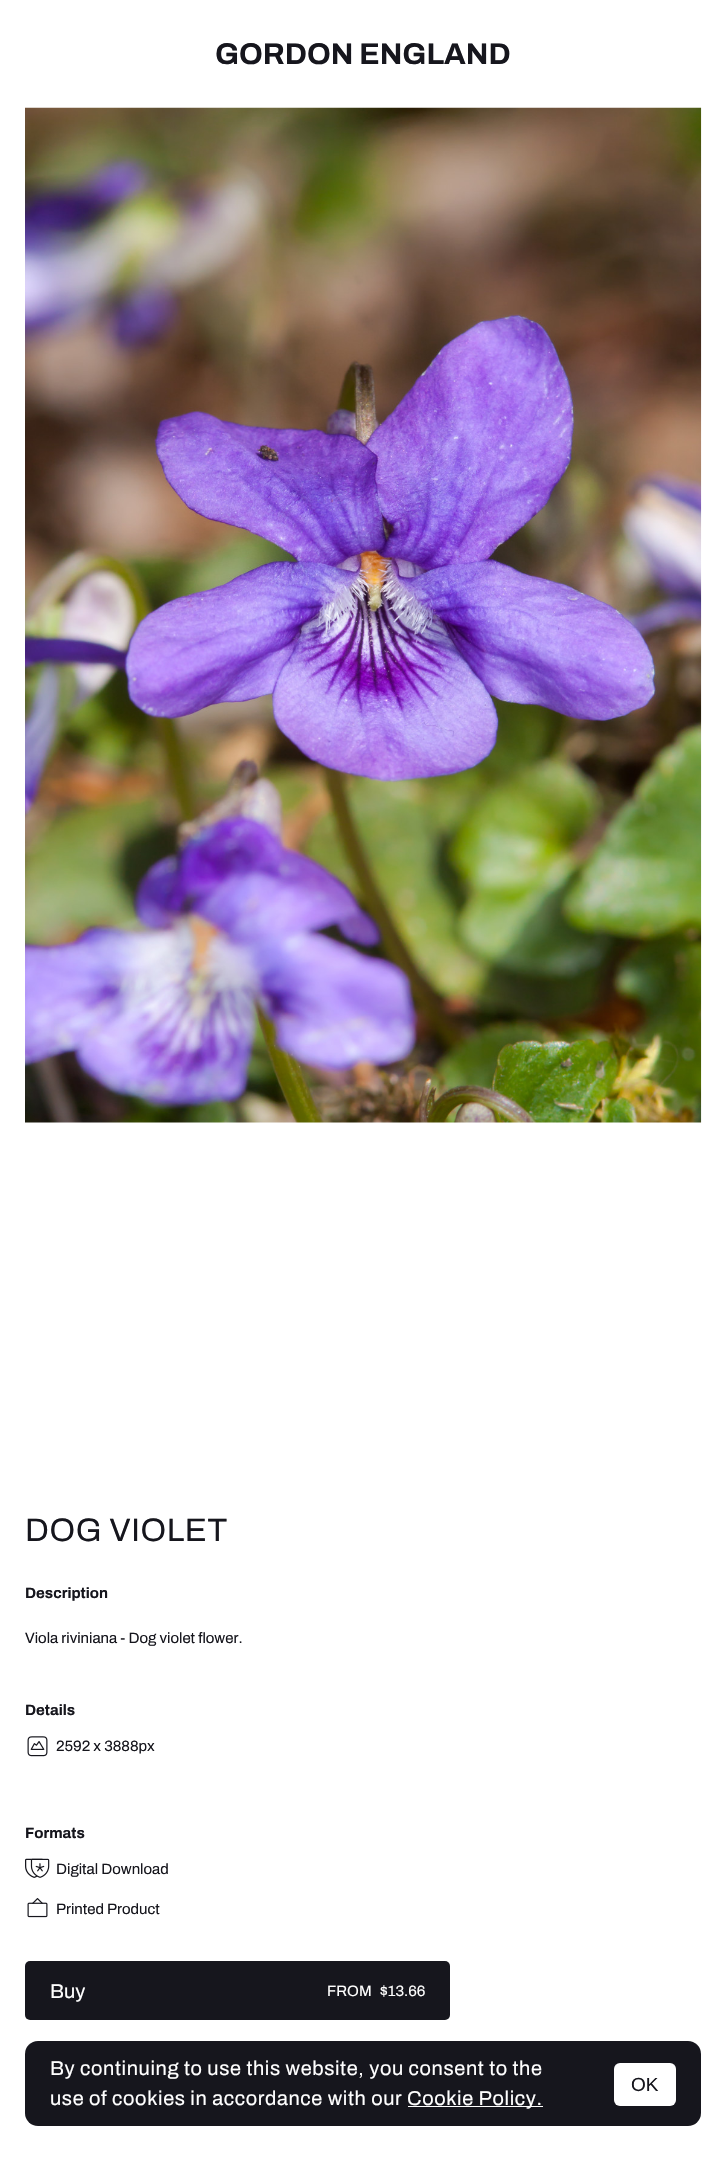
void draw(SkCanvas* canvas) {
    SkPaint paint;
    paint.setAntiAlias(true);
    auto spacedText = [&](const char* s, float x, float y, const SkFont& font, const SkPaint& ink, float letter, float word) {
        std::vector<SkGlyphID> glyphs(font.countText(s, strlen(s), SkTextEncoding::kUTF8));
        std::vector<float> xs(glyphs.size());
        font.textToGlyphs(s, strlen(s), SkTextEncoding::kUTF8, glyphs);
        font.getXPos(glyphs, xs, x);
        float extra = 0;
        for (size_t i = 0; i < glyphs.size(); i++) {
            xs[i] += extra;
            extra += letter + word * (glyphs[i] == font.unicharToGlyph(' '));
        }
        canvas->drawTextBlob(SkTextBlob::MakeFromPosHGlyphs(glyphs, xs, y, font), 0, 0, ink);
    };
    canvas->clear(0xFFFFFFFF);
    SkFont font1(fontMgr->matchFamilyStyle("Archivo", SkFontStyle::Bold()), 30);
    font1.setSubpixel(true);
    paint.setColor(0xFF16161D);
    canvas->drawString("GORDON ENGLAND", 215, 64, font1, paint);
    canvas->drawImageRect(SkImages::DeferredFromEncodedData(SkData::MakeFromFileName("img1.png")), SkRect::MakeXYWH(25, 107, 677, 1016), SkSamplingOptions());
    SkFont font2(fontMgr->matchFamilyStyle("Archivo", SkFontStyle::Normal()), 32.5f);
    font2.setSubpixel(true);
    spacedText("DOG VIOLET", 25, 1541, font2, paint, 0.62f, 0);
    SkFont font3(fontMgr->matchFamilyStyle("Archivo", SkFontStyle::Bold()), 15);
    font3.setSubpixel(true);
    canvas->drawString("Description", 25, 1598, font3, paint);
    SkFont font4(fontMgr->matchFamilyStyle("Archivo", SkFontStyle::Normal()), 15);
    font4.setSubpixel(true);
    canvas->drawString("Viola riviniana - Dog violet flower.", 25, 1643, font4, paint);
    canvas->drawString("Details", 25, 1715, font3, paint);
    canvas->drawImageRect(SkImages::DeferredFromEncodedData(SkData::MakeFromFileName("img2.png")), SkRect::MakeXYWH(27, 1736, 21, 21), SkSamplingOptions());
    canvas->drawString("2592 x 3888px", 56, 1751, font4, paint);
    canvas->drawString("Formats", 25, 1838, font3, paint);
    canvas->drawImageRect(SkImages::DeferredFromEncodedData(SkData::MakeFromFileName("img3.png")), SkRect::MakeXYWH(25, 1858, 25, 20), SkSamplingOptions());
    canvas->drawString("Digital Download", 56, 1874, font4, paint);
    canvas->drawImageRect(SkImages::DeferredFromEncodedData(SkData::MakeFromFileName("img4.png")), SkRect::MakeXYWH(27, 1898, 21, 20), SkSamplingOptions());
    canvas->drawString("Printed Product", 56, 1914, font4, paint);
    canvas->drawRoundRect(SkRect::MakeXYWH(25, 1961, 425, 59), 5, 5, paint);
    SkFont font5(fontMgr->matchFamilyStyle("Archivo", SkFontStyle::Normal()), 20);
    font5.setSubpixel(true);
    paint.setColor(0xFFFFFFFF);
    canvas->drawString("Buy", 50, 1998, font5, paint);
    canvas->drawString("FROM", 327, 1996, font4, paint);
    canvas->drawString("$13.66", 380, 1996, font4, paint);
    paint.setColor(0xFF16161D);
    canvas->drawRoundRect(SkRect::MakeXYWH(25, 2041, 676, 85), 13, 13, paint);
    paint.setColor(0xFFFFFFFF);
    spacedText("By continuing to use this website, you consent to the", 50, 2075, font5, paint, 0.62f, 0);
    spacedText("use of cookies in accordance with our", 50, 2105, font5, paint, 0.62f, 0);
    canvas->drawRect(SkRect::MakeXYWH(408, 2106, 135, 1), paint);
    spacedText("Cookie Policy.", 407, 2105, font5, paint, 0.62f, 0);
    canvas->drawRoundRect(SkRect::MakeXYWH(614, 2063, 62, 43), 6, 6, paint);
    SkFont font6(fontMgr->matchFamilyStyle("Liberation Sans", SkFontStyle::Normal()), 19);
    font6.setSubpixel(true);
    paint.setColor(0xFF16161D);
    canvas->drawString("OK", 631, 2091, font6, paint);
}
